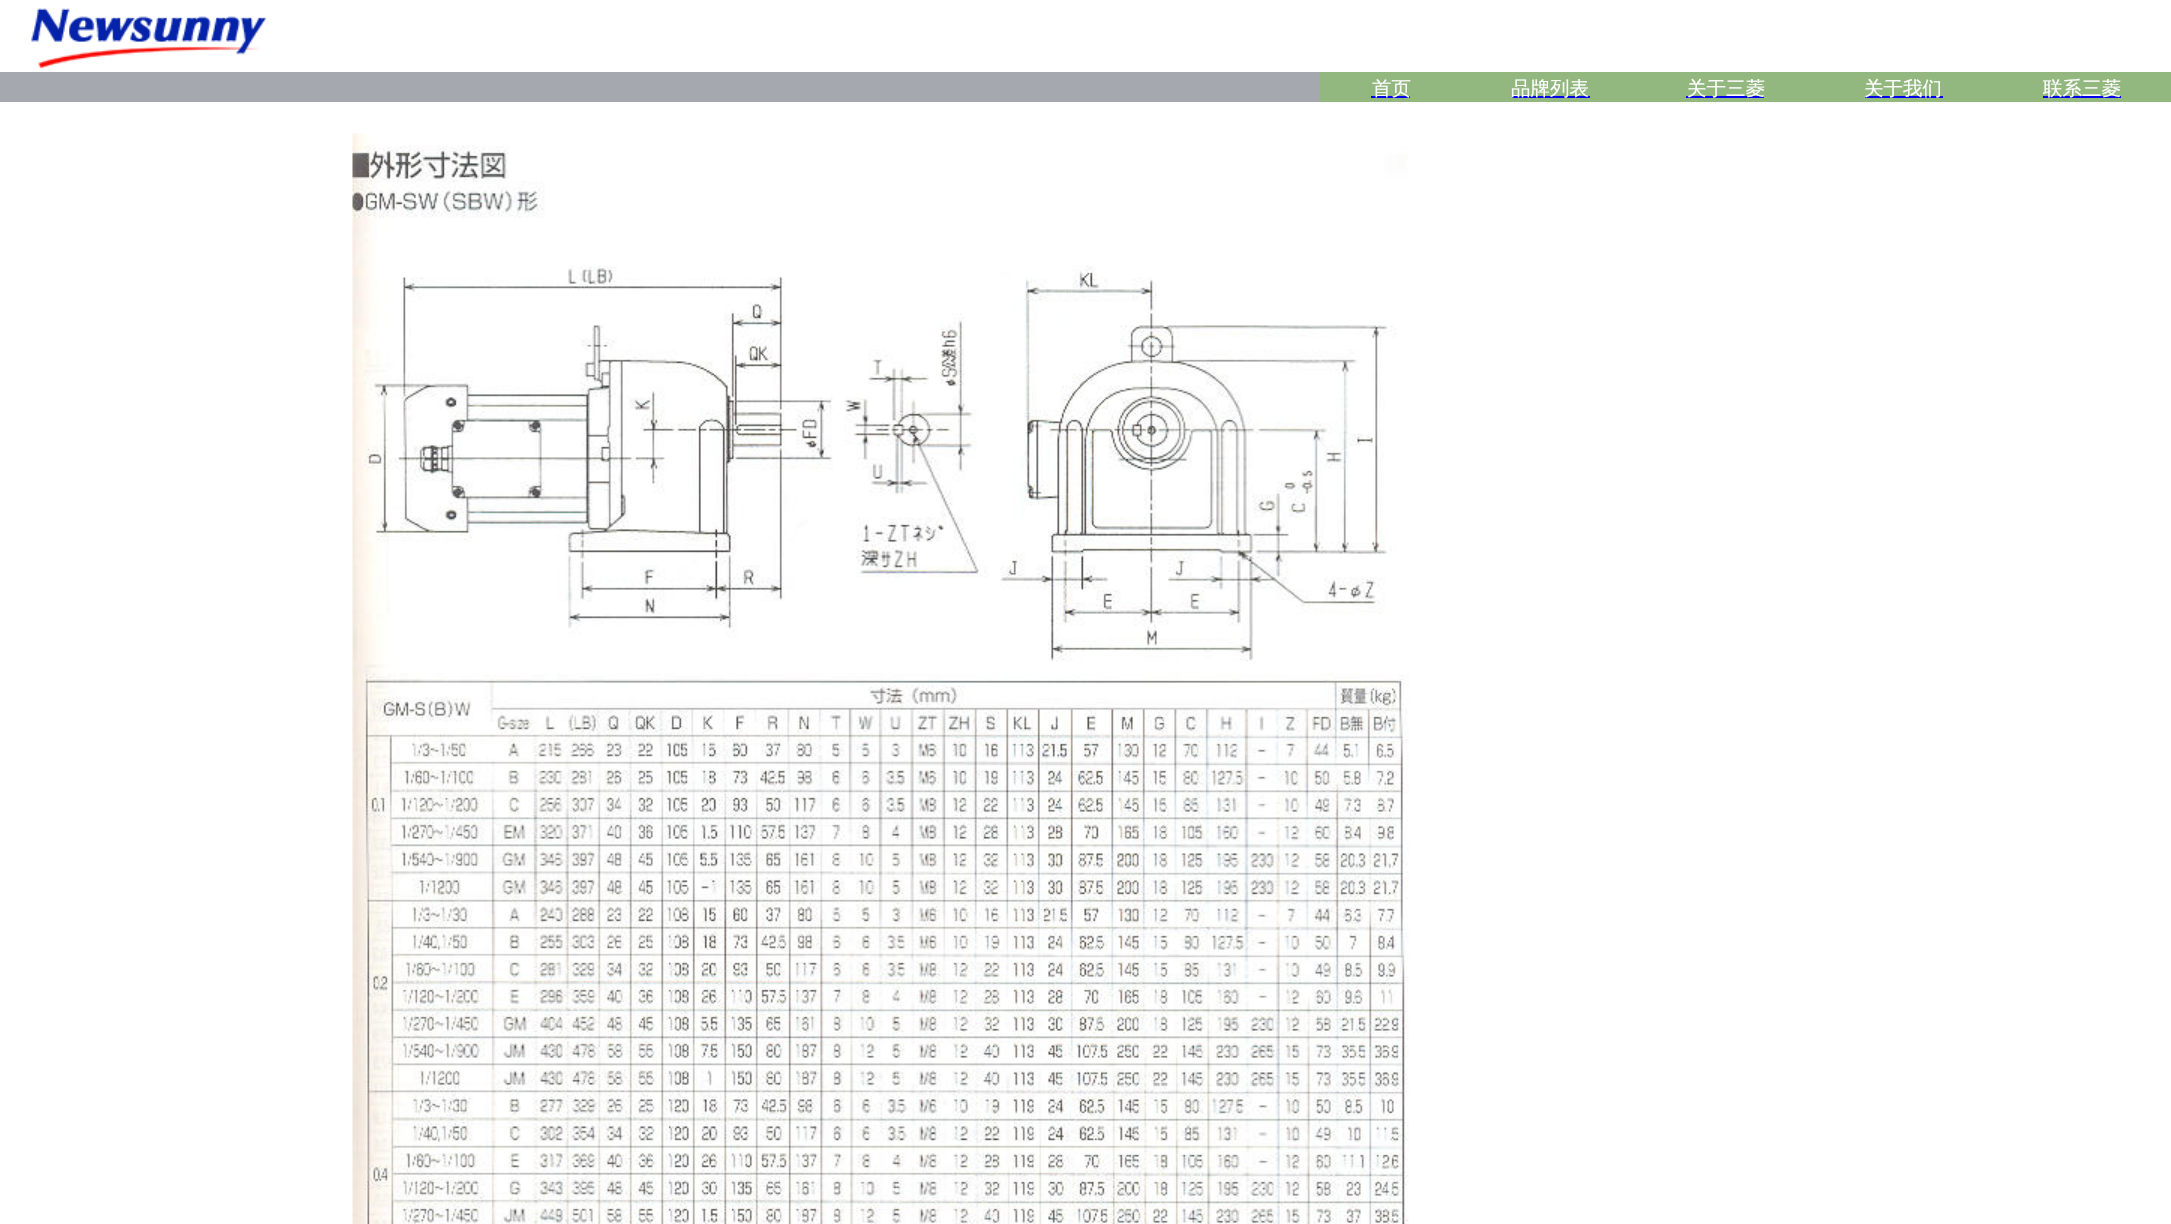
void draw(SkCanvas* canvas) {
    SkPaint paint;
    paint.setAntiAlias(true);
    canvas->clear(0xFFFFFFFF);
    canvas->drawImageRect(SkImages::DeferredFromEncodedData(SkData::MakeFromFileName("img1.png")), SkRect::MakeXYWH(31, 8, 235, 61), SkSamplingOptions());
    paint.setColor(0xFFA5A9AF);
    canvas->drawRect(SkRect::MakeXYWH(0, 72, 1320, 30), paint);
    paint.setColor(0xFF92B77F);
    canvas->drawRect(SkRect::MakeXYWH(1320, 72, 851, 30), paint);
    paint.setColor(0xFF0000EE);
    canvas->drawRect(SkRect::MakeXYWH(1371, 96, 39, 2), paint);
    SkFont font1(fontMgr->matchFamilyStyle("WenQuanYi Zen Hei", SkFontStyle(500, SkFontStyle::kNormal_Width, SkFontStyle::kUpright_Slant)), 19.5f);
    font1.setSubpixel(true);
    paint.setColor(0xFFFFFFFF);
    canvas->drawString("首页", 1372, 95, font1, paint);
    paint.setColor(0xFF0000EE);
    canvas->drawRect(SkRect::MakeXYWH(1512, 96, 78, 2), paint);
    paint.setColor(0xFFFFFFFF);
    canvas->drawString("品牌列表", 1511, 95, font1, paint);
    paint.setColor(0xFF0000EE);
    canvas->drawRect(SkRect::MakeXYWH(1686, 96, 78, 2), paint);
    paint.setColor(0xFFFFFFFF);
    canvas->drawString("关于三菱", 1687, 95, font1, paint);
    paint.setColor(0xFF0000EE);
    canvas->drawRect(SkRect::MakeXYWH(1865, 96, 78, 2), paint);
    paint.setColor(0xFFFFFFFF);
    canvas->drawString("关于我们", 1864, 95, font1, paint);
    paint.setColor(0xFF0000EE);
    canvas->drawRect(SkRect::MakeXYWH(2043, 96, 78, 2), paint);
    paint.setColor(0xFFFFFFFF);
    canvas->drawString("联系三菱", 2043, 95, font1, paint);
    canvas->drawImageRect(SkImages::DeferredFromEncodedData(SkData::MakeFromFileName("img2.png")), SkRect::MakeXYWH(352, 133, 1057, 1091), SkSamplingOptions());
}
